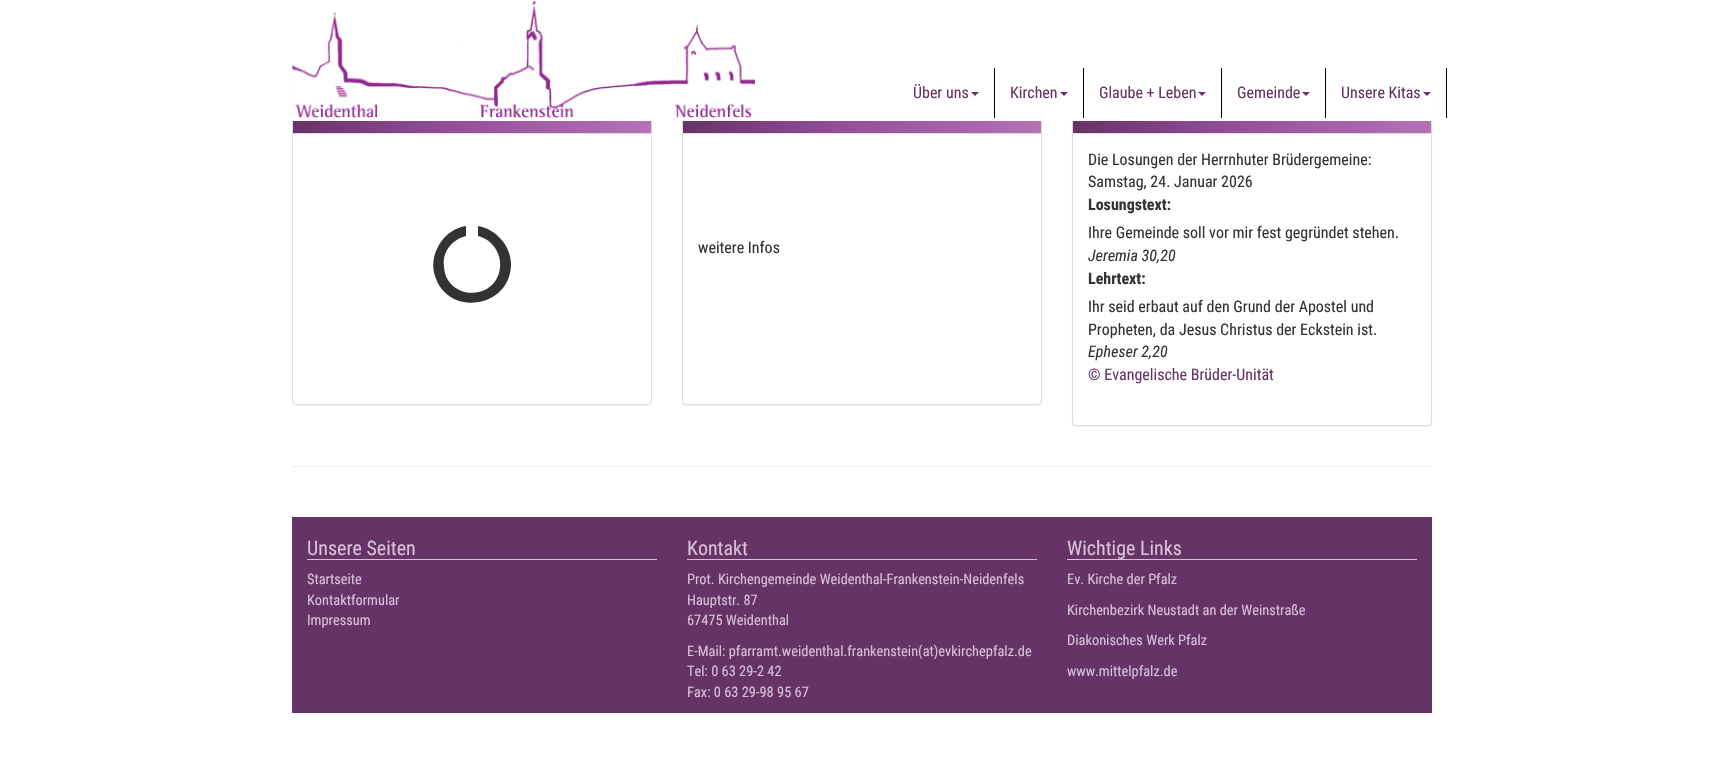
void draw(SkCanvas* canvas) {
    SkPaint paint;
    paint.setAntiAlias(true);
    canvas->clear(0xFFFFFFFF);
    paint.setColor(0x0D000000);
    paint.setMaskFilter(SkMaskFilter::MakeBlur(kNormal_SkBlurStyle, 0.5f));
    canvas->drawRoundRect(SkRect::MakeXYWH(292, 73, 360, 333), 4, 4, paint);
    paint.setMaskFilter(nullptr);
    paint.setColor(0xFFFFFFFF);
    canvas->drawRoundRect(SkRect::MakeXYWH(292.5f, 72.5f, 359, 332), 3.5f, 3.5f, paint);
    paint.setStyle(SkPaint::kStroke_Style);
    paint.setStrokeWidth(1);
    paint.setColor(0xFFDDDDDD);
    canvas->drawRoundRect(SkRect::MakeXYWH(292.5f, 72.5f, 359, 332), 3.5f, 3.5f, paint);
    paint.setStyle(SkPaint::kFill_Style);
    paint.setColor(0x0D000000);
    paint.setMaskFilter(SkMaskFilter::MakeBlur(kNormal_SkBlurStyle, 0.5f));
    canvas->drawRoundRect(SkRect::MakeXYWH(682, 73, 360, 333), 4, 4, paint);
    paint.setMaskFilter(nullptr);
    paint.setColor(0xFFFFFFFF);
    canvas->drawRoundRect(SkRect::MakeXYWH(682.5f, 72.5f, 359, 332), 3.5f, 3.5f, paint);
    paint.setStyle(SkPaint::kStroke_Style);
    paint.setColor(0xFFDDDDDD);
    canvas->drawRoundRect(SkRect::MakeXYWH(682.5f, 72.5f, 359, 332), 3.5f, 3.5f, paint);
    paint.setStyle(SkPaint::kFill_Style);
    paint.setColor(0x0D000000);
    paint.setMaskFilter(SkMaskFilter::MakeBlur(kNormal_SkBlurStyle, 0.5f));
    canvas->drawRoundRect(SkRect::MakeXYWH(1072, 73, 360, 354), 4, 4, paint);
    paint.setMaskFilter(nullptr);
    paint.setColor(0xFFFFFFFF);
    canvas->drawRoundRect(SkRect::MakeXYWH(1072.5f, 72.5f, 359, 353), 3.5f, 3.5f, paint);
    paint.setStyle(SkPaint::kStroke_Style);
    paint.setColor(0xFFDDDDDD);
    canvas->drawRoundRect(SkRect::MakeXYWH(1072.5f, 72.5f, 359, 353), 3.5f, 3.5f, paint);
    paint.setStyle(SkPaint::kFill_Style);
    paint.setColor(0xFFFFFFFF);
    canvas->drawRect(SkRect::MakeXYWH(292, 72, 1140, 49), paint);
    canvas->drawImageRect(SkImages::DeferredFromEncodedData(SkData::MakeFromFileName("img1.png")), SkRect::MakeXYWH(292, 0, 463, 119), SkSamplingOptions());
    paint.setColor(0xFF000000);
    canvas->drawRect(SkRect::MakeXYWH(994, 68, 1, 50), paint);
    SkFont font1(fontMgr->matchFamilyStyle("Roboto Condensed", SkFontStyle::Normal()), 16);
    font1.setSubpixel(true);
    paint.setColor(0xFF663366);
    canvas->drawString("Über uns", 913, 98, font1, paint);
    canvas->drawPath(SkPathBuilder().moveTo(971, 92).lineTo(979, 92).lineTo(975, 96).close().detach(), paint);
    paint.setColor(0xFF000000);
    canvas->drawRect(SkRect::MakeXYWH(1083, 68, 1, 50), paint);
    paint.setColor(0xFF663366);
    canvas->drawString("Kirchen", 1010, 98, font1, paint);
    canvas->drawPath(SkPathBuilder().moveTo(1060, 92).lineTo(1068, 92).lineTo(1064, 96).close().detach(), paint);
    paint.setColor(0xFF000000);
    canvas->drawRect(SkRect::MakeXYWH(1221, 68, 1, 50), paint);
    paint.setColor(0xFF663366);
    canvas->drawString("Glaube + Leben", 1099, 98, font1, paint);
    canvas->drawPath(SkPathBuilder().moveTo(1198, 92).lineTo(1206, 92).lineTo(1202, 96).close().detach(), paint);
    paint.setColor(0xFF000000);
    canvas->drawRect(SkRect::MakeXYWH(1325, 68, 1, 50), paint);
    paint.setColor(0xFF663366);
    canvas->drawString("Gemeinde", 1237, 98, font1, paint);
    canvas->drawPath(SkPathBuilder().moveTo(1302, 92).lineTo(1310, 92).lineTo(1306, 96).close().detach(), paint);
    paint.setColor(0xFF000000);
    canvas->drawRect(SkRect::MakeXYWH(1446, 68, 1, 50), paint);
    paint.setColor(0xFF663366);
    canvas->drawString("Unsere Kitas", 1341, 98, font1, paint);
    canvas->drawPath(SkPathBuilder().moveTo(1423, 92).lineTo(1431, 92).lineTo(1427, 96).close().detach(), paint);
    {
        const SkColor colors[] = {0xFF663366, 0xFF954D9B, 0xFFB771B5};
        const float stops[] = {0, 0.44f, 1};
        const SkPoint ends[] = {{293, 103}, {651, 103}};
        paint.setShader(SkGradientShader::MakeLinear(ends, colors, stops, 3, SkTileMode::kClamp));
        paint.setAlpha(255);
    }
    canvas->drawRect(SkRect::MakeXYWH(293, 121, 358, 12), paint);
    paint.setShader(nullptr);
    paint.setColor(0xFFDDDDDD);
    canvas->drawRect(SkRect::MakeXYWH(293, 133, 358, 1), paint);
    paint.setColor(0xFF333333);
    canvas->drawPath(SkPathBuilder().moveTo(511, 264).cubicTo(511, 308, 448, 318, 435, 276).cubicTo(432, 267, 433, 257, 437, 249).cubicTo(442, 237, 453, 228, 466, 226).lineTo(466, 236).cubicTo(458, 238, 451, 243, 447, 250).cubicTo(444, 255, 443, 261, 444, 267).cubicTo(446, 297, 487, 302, 498, 276).cubicTo(505, 259, 495, 240, 478, 236).lineTo(478, 226).cubicTo(496, 229, 511, 246, 511, 264).close().detach(), paint);
    {
        const SkColor colors[] = {0xFF663366, 0xFF954D9B, 0xFFB771B5};
        const float stops[] = {0, 0.44f, 1};
        const SkPoint ends[] = {{683, 103}, {1041, 103}};
        paint.setShader(SkGradientShader::MakeLinear(ends, colors, stops, 3, SkTileMode::kClamp));
        paint.setAlpha(255);
    }
    canvas->drawRect(SkRect::MakeXYWH(683, 121, 358, 12), paint);
    paint.setShader(nullptr);
    paint.setColor(0xFFDDDDDD);
    canvas->drawRect(SkRect::MakeXYWH(683, 133, 358, 1), paint);
    paint.setColor(0xFF333333);
    canvas->drawString("weitere Infos", 698, 253, font1, paint);
    {
        const SkColor colors[] = {0xFF663366, 0xFF954D9B, 0xFFB771B5};
        const float stops[] = {0, 0.44f, 1};
        const SkPoint ends[] = {{1073, 103}, {1431, 103}};
        paint.setShader(SkGradientShader::MakeLinear(ends, colors, stops, 3, SkTileMode::kClamp));
        paint.setAlpha(255);
    }
    canvas->drawRect(SkRect::MakeXYWH(1073, 121, 358, 12), paint);
    paint.setShader(nullptr);
    paint.setColor(0xFFDDDDDD);
    canvas->drawRect(SkRect::MakeXYWH(1073, 133, 358, 1), paint);
    paint.setColor(0xFF333333);
    canvas->drawString("Die Losungen der Herrnhuter Brüdergemeine:", 1088, 165, font1, paint);
    canvas->drawString("Samstag, 24. Januar 2026", 1088, 187, font1, paint);
    SkFont font2(fontMgr->matchFamilyStyle("Roboto Condensed", SkFontStyle::Bold()), 16);
    font2.setSubpixel(true);
    canvas->drawString("Losungstext:", 1088, 210, font2, paint);
    canvas->drawString("Ihre Gemeinde soll vor mir fest gegründet stehen.", 1088, 238, font1, paint);
    SkFont font3(fontMgr->matchFamilyStyle("Roboto Condensed", SkFontStyle::Italic()), 16);
    font3.setSubpixel(true);
    canvas->drawString("Jeremia 30,20", 1088, 261, font3, paint);
    canvas->drawString("Lehrtext:", 1088, 284, font2, paint);
    canvas->drawString("Ihr seid erbaut auf den Grund der Apostel und", 1088, 312, font1, paint);
    canvas->drawString("Propheten, da Jesus Christus der Eckstein ist.", 1088, 335, font1, paint);
    canvas->drawString("Epheser 2,20", 1088, 357, font3, paint);
    paint.setColor(0xFF663366);
    canvas->drawString("© Evangelische Brüder-Unität", 1088, 380, font1, paint);
    paint.setColor(0xFFEEEEEE);
    canvas->drawRect(SkRect::MakeXYWH(292, 466, 1140, 1), paint);
    paint.setColor(0xFF663366);
    canvas->drawRect(SkRect::MakeXYWH(292, 517, 1140, 196), paint);
    paint.setColor(0xFFD8BFD8);
    canvas->drawRect(SkRect::MakeXYWH(307, 559, 350, 1), paint);
    SkFont font4(fontMgr->matchFamilyStyle("Roboto Condensed", SkFontStyle::Normal()), 20);
    font4.setSubpixel(true);
    canvas->drawString("Unsere Seiten", 307, 555, font4, paint);
    SkFont font5(fontMgr->matchFamilyStyle("Roboto Condensed", SkFontStyle::Normal()), 14.4f);
    font5.setSubpixel(true);
    canvas->drawString("Startseite", 307, 584, font5, paint);
    canvas->drawString("Kontaktformular", 307, 605, font5, paint);
    canvas->drawString("Impressum", 307, 625, font5, paint);
    canvas->drawRect(SkRect::MakeXYWH(687, 559, 350, 1), paint);
    canvas->drawString("Kontakt", 687, 555, font4, paint);
    canvas->drawString("Prot. Kirchengemeinde Weidenthal-Frankenstein-Neidenfels", 687, 584, font5, paint);
    canvas->drawString("Hauptstr. 87", 687, 605, font5, paint);
    canvas->drawString("67475 Weidenthal", 687, 625, font5, paint);
    canvas->drawString("E-Mail: pfarramt.weidenthal.frankenstein(at)evkirchepfalz.de", 687, 656, font5, paint);
    canvas->drawString("Tel: 0 63 29-2 42", 687, 676, font5, paint);
    canvas->drawString("Fax: 0 63 29-98 95 67", 687, 697, font5, paint);
    canvas->drawRect(SkRect::MakeXYWH(1067, 559, 350, 1), paint);
    canvas->drawString("Wichtige Links", 1067, 555, font4, paint);
    canvas->drawString("Ev. Kirche der Pfalz", 1067, 584, font5, paint);
    canvas->drawString("Kirchenbezirk Neustadt an der Weinstraße", 1067, 615, font5, paint);
    canvas->drawString("Diakonisches Werk Pfalz", 1067, 645, font5, paint);
    canvas->drawString("www.mittelpfalz.de", 1067, 676, font5, paint);
}
